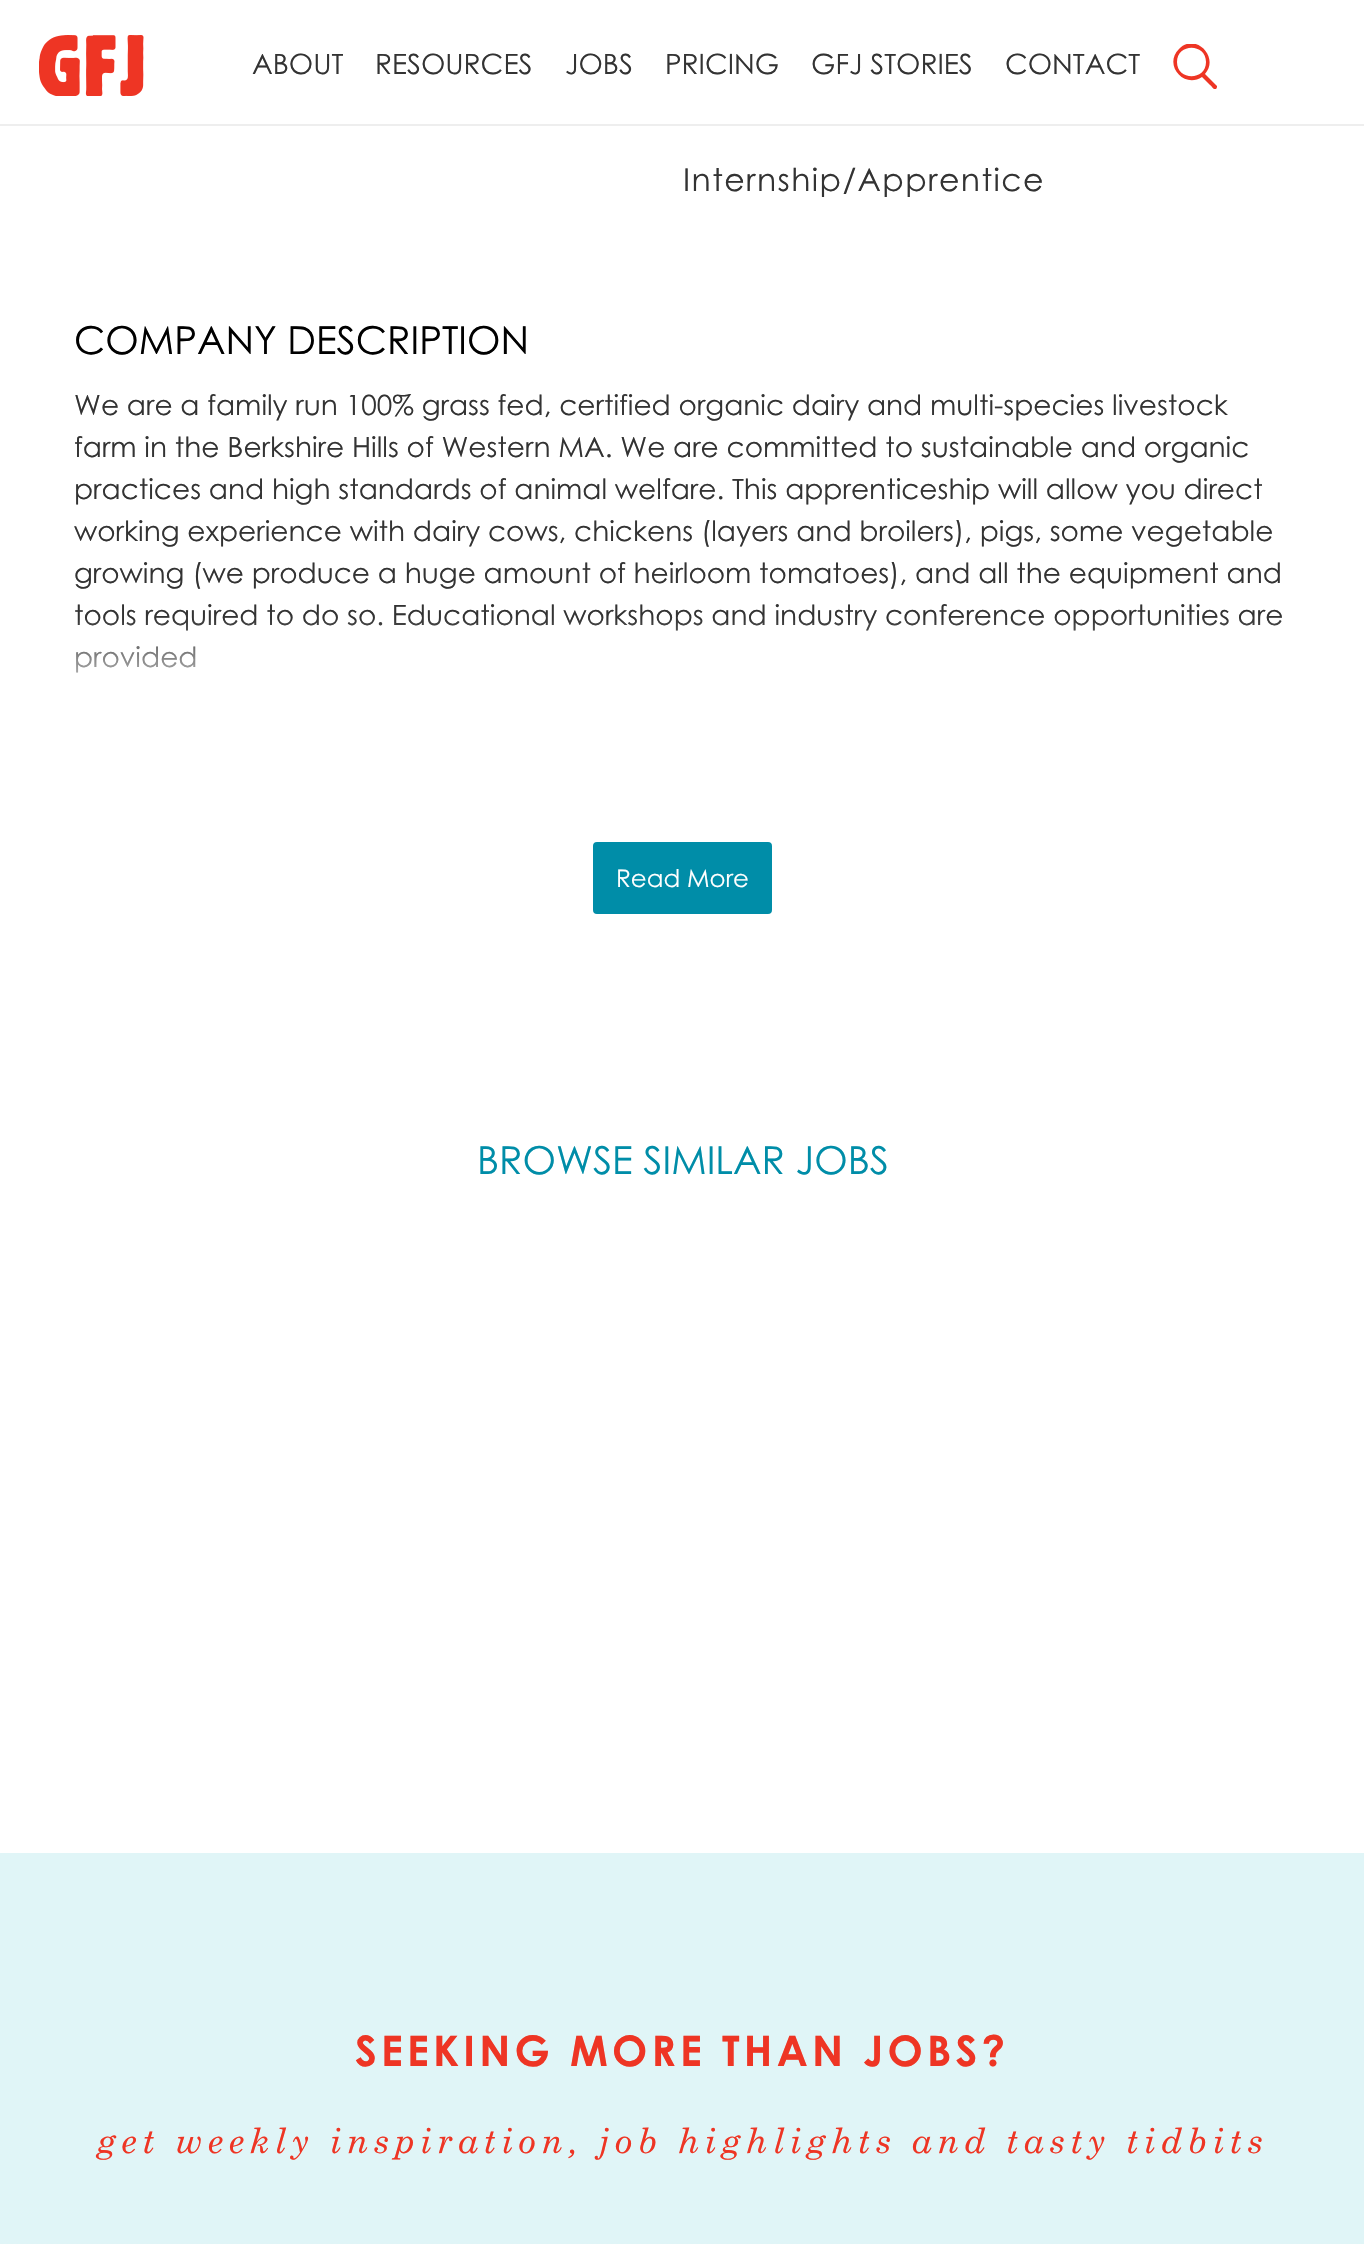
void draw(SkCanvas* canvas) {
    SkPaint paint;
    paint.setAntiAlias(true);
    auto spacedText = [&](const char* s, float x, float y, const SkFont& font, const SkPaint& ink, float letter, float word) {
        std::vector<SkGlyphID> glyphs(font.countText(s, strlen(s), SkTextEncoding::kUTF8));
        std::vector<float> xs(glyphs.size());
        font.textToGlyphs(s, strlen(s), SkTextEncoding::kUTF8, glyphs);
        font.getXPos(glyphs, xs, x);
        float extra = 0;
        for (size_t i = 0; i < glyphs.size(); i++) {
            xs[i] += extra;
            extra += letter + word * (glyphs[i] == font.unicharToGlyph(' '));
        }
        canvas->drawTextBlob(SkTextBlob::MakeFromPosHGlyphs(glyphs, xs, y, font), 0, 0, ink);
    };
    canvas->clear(0xFFFFFFFF);
    paint.setColor(0xFFEEEEEE);
    canvas->drawRect(SkRect::MakeXYWH(0, 124, 1364, 2), paint);
    canvas->drawImageRect(SkImages::DeferredFromEncodedData(SkData::MakeFromFileName("img1.png")), SkRect::MakeXYWH(39, 35, 105, 61), SkSamplingOptions());
    SkFont font1(fontMgr->matchFamilyStyle("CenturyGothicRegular", SkFontStyle::Normal()), 28);
    font1.setSubpixel(true);
    paint.setColor(0xFF333333);
    canvas->drawString("ABOUT", 252, 74, font1, paint);
    canvas->drawString("RESOURCES", 375, 74, font1, paint);
    canvas->drawString("JOBS", 565, 74, font1, paint);
    canvas->drawString("PRICING", 665, 74, font1, paint);
    canvas->drawString("GFJ STORIES", 811, 74, font1, paint);
    canvas->drawString("CONTACT", 1005, 74, font1, paint);
    canvas->save();
    canvas->clipRect(SkRect::MakeXYWH(1173, 44, 45, 45));
    paint.setColor(0xFFEE3524);
    canvas->drawPath(SkPathBuilder().moveTo(1217, 86).lineTo(1205, 74).cubicTo(1220, 57, 1195, 32, 1179, 49).cubicTo(1163, 65, 1184, 89, 1202, 77).lineTo(1210, 85).cubicTo(1211, 85, 1214, 91, 1216, 89).cubicTo(1217, 88, 1217, 87, 1217, 86).close().moveTo(1177, 62).cubicTo(1177, 43, 1206, 43, 1206, 62).cubicTo(1206, 81, 1177, 81, 1177, 62).close().detach(), paint);
    canvas->restore();
    SkFont font2(fontMgr->matchFamilyStyle("CenturyGothicRegular", SkFontStyle::Normal()), 31.5f);
    font2.setSubpixel(true);
    paint.setColor(0xFF333333);
    spacedText("Internship/Apprentice", 683, 191, font2, paint, 1.4f, 0);
    SkFont font3(fontMgr->matchFamilyStyle("CenturyGothicRegular", SkFontStyle::Normal()), 38.5f);
    font3.setSubpixel(true);
    paint.setColor(0xFF000000);
    canvas->drawString("COMPANY DESCRIPTION", 74, 354, font3, paint);
    paint.setColor(0xFF333333);
    canvas->drawString("We are a family run 100% grass fed, certified organic dairy and multi-species livestock", 74, 415, font1, paint);
    canvas->drawString("farm in the Berkshire Hills of Western MA. We are committed to sustainable and organic", 74, 457, font1, paint);
    canvas->drawString("practices and high standards of animal welfare. This apprenticeship will allow you direct", 74, 499, font1, paint);
    canvas->drawString("working experience with dairy cows, chickens (layers and broilers), pigs, some vegetable", 74, 541, font1, paint);
    canvas->drawString("growing (we produce a huge amount of heirloom tomatoes), and all the equipment and", 74, 583, font1, paint);
    canvas->drawString("tools required to do so. Educational workshops and industry conference opportunities are", 74, 625, font1, paint);
    canvas->drawString("provided", 74, 667, font1, paint);
    {
        const SkColor colors[] = {0xFFFFFFFF, 0x00FFFFFF};
        const float stops[] = {0.3f, 1};
        const SkPoint ends[] = {{683, 758}, {683, 618}};
        paint.setShader(SkGradientShader::MakeLinear(ends, colors, stops, 2, SkTileMode::kClamp));
        paint.setAlpha(255);
    }
    canvas->drawRect(SkRect::MakeXYWH(75, 620, 1206, 53), paint);
    paint.setShader(nullptr);
    paint.setColor(0xFF008DA8);
    canvas->drawRoundRect(SkRect::MakeXYWH(594, 843, 177, 70), 3, 3, paint);
    paint.setStyle(SkPaint::kStroke_Style);
    paint.setStrokeWidth(2);
    canvas->drawRoundRect(SkRect::MakeXYWH(594, 843, 177, 70), 3, 3, paint);
    SkFont font4(fontMgr->matchFamilyStyle("CenturyGothicRegular", SkFontStyle::Normal()), 24.5f);
    font4.setSubpixel(true);
    paint.setStyle(SkPaint::kFill_Style);
    paint.setColor(0xFFFFFFFF);
    canvas->drawString("Read More", 616, 887, font4, paint);
    paint.setColor(0xFF008DA8);
    canvas->drawString("BROWSE SIMILAR JOBS", 477, 1174, font3, paint);
    paint.setColor(0xFFE0F5F7);
    canvas->drawRect(SkRect::MakeXYWH(0, 1853, 1364, 391), paint);
    SkFont font5(fontMgr->matchFamilyStyle("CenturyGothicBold", SkFontStyle::Bold()), 42);
    font5.setSubpixel(true);
    paint.setColor(0xFFEE3524);
    spacedText("SEEKING MORE THAN JOBS?", 355, 2066, font5, paint, 4.2f, 0);
    SkFont font6(fontMgr->matchFamilyStyle("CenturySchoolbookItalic", SkFontStyle::Italic()), 35);
    font6.setSubpixel(true);
    spacedText("get weekly inspiration, job highlights and tasty tidbits", 97, 2153, font6, paint, 5.42f, 0);
}
